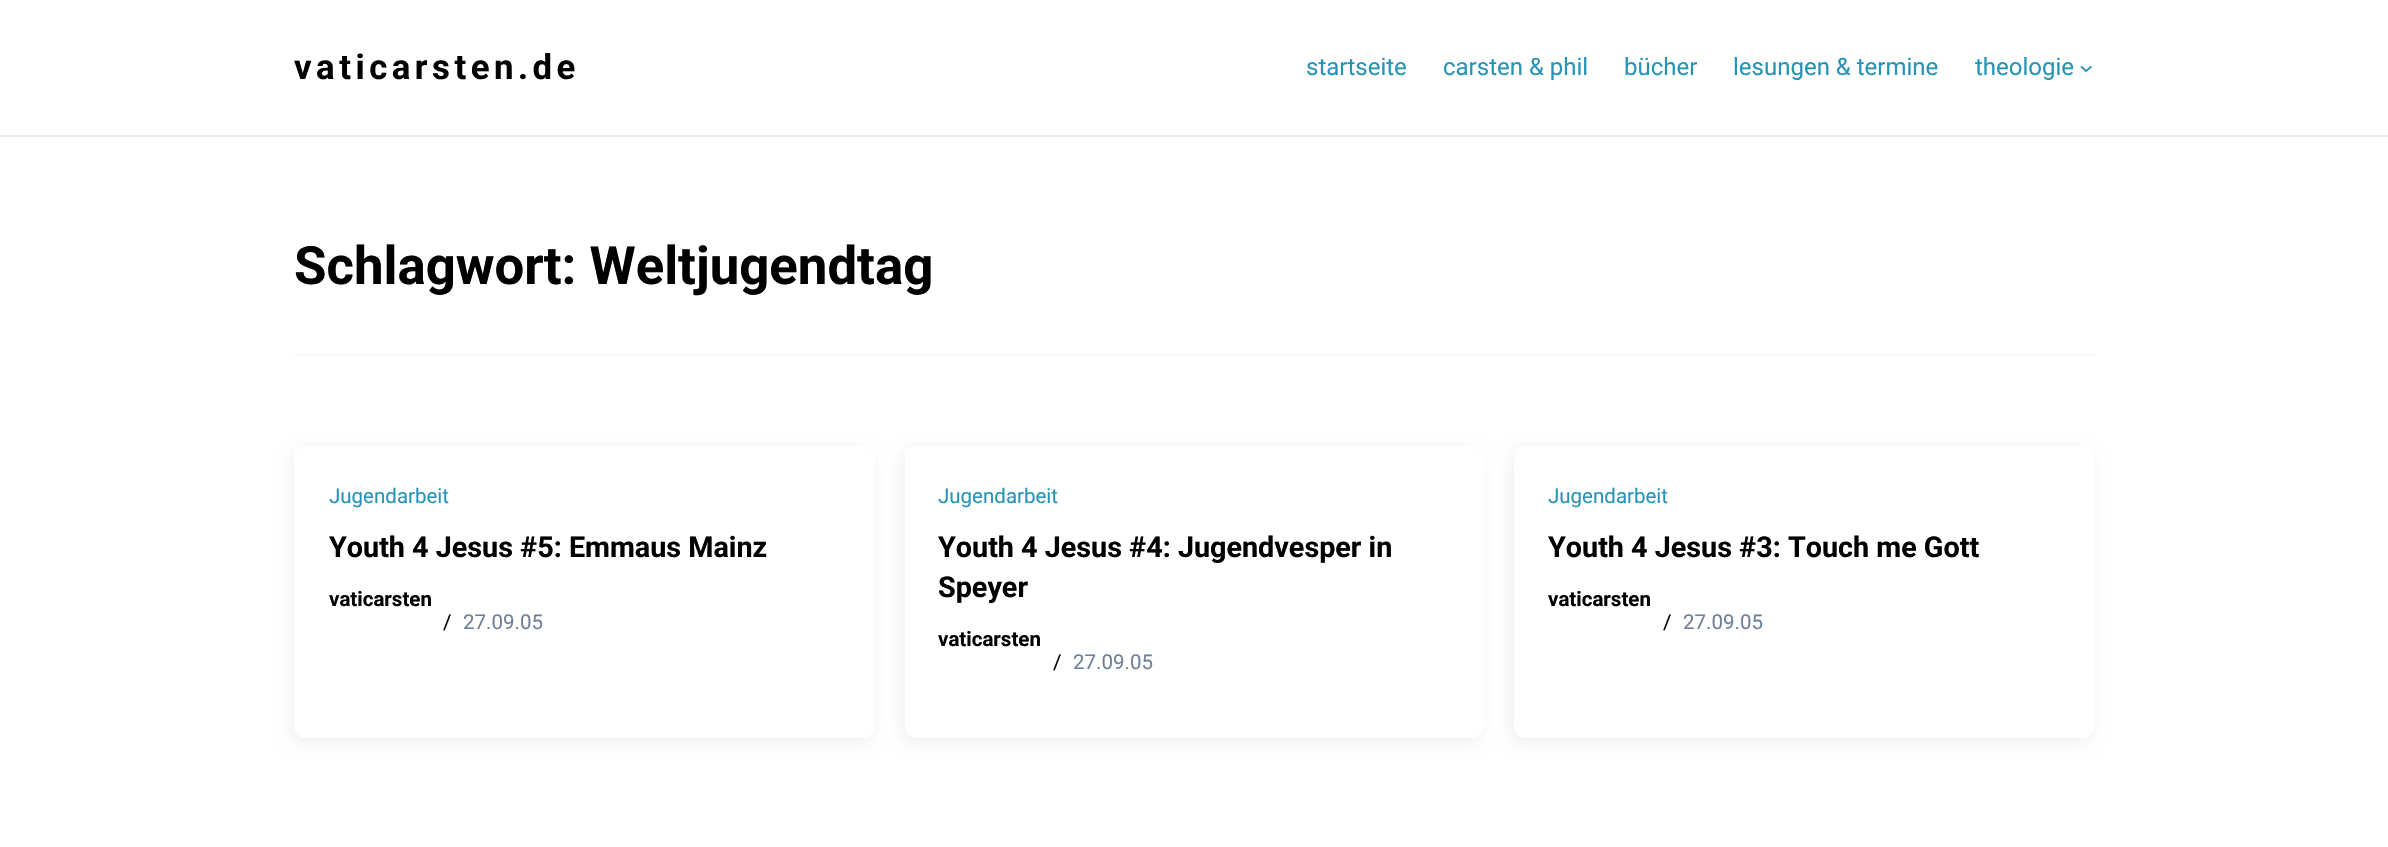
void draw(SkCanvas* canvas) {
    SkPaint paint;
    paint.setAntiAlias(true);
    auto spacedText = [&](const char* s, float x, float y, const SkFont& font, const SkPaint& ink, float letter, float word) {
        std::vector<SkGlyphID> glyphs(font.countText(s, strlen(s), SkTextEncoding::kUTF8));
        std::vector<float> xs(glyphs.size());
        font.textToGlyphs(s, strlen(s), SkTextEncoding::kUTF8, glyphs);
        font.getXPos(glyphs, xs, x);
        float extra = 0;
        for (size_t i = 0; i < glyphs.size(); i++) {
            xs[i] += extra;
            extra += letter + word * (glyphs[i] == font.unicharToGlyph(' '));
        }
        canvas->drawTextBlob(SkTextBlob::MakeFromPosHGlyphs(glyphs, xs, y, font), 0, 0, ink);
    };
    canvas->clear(0xFFFFFFFF);
    paint.setColor(0xFFEAEAEA);
    canvas->drawRect(SkRect::MakeXYWH(0, 135, 2388, 2), paint);
    SkFont font1(fontMgr->matchFamilyStyle("Roboto", SkFontStyle::Bold()), 34.75f);
    font1.setSubpixel(true);
    paint.setColor(0xFF000000);
    spacedText("vaticarsten.de", 294, 79, font1, paint, 4.5f, 0);
    SkFont font2(fontMgr->matchFamilyStyle("Roboto", SkFontStyle::Normal()), 24);
    font2.setSubpixel(true);
    paint.setColor(0xFF2794B5);
    canvas->drawString("startseite", 1306, 75, font2, paint);
    canvas->drawString("carsten & phil", 1443, 75, font2, paint);
    canvas->drawString("bücher", 1624, 75, font2, paint);
    canvas->drawString("lesungen & termine", 1733, 75, font2, paint);
    canvas->drawString("theologie", 1975, 75, font2, paint);
    paint.setStyle(SkPaint::kStroke_Style);
    paint.setStrokeWidth(1.8f);
    canvas->drawPath(SkPathBuilder().moveTo(2081, 66.5f).lineTo(2086, 71).lineTo(2091.5f, 66.5f).detach(), paint);
    SkFont font3(fontMgr->matchFamilyStyle("Roboto", SkFontStyle::Bold()), 52.75f);
    font3.setSubpixel(true);
    paint.setStyle(SkPaint::kFill_Style);
    paint.setColor(0xFF000000);
    canvas->drawString("Schlagwort: Weltjugendtag", 294, 284, font3, paint);
    paint.setColor(0xFFF7F7F7);
    canvas->drawRect(SkRect::MakeXYWH(294, 354, 1800, 2), paint);
    canvas->save();
    canvas->clipPath(SkPathBuilder(SkPathFillType::kEvenOdd).moveTo(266, 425).lineTo(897, 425).lineTo(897, 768).lineTo(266, 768).close().moveTo(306, 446).lineTo(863, 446).cubicTo(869.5f, 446, 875, 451.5f, 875, 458).lineTo(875, 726).cubicTo(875, 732.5f, 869.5f, 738, 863, 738).lineTo(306, 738).cubicTo(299.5f, 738, 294, 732.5f, 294, 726).lineTo(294, 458).cubicTo(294, 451.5f, 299.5f, 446, 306, 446).close().detach(), true);
    paint.setColor(0x42CACACA);
    paint.setMaskFilter(SkMaskFilter::MakeBlur(kNormal_SkBlurStyle, 7.5f));
    canvas->drawRoundRect(SkRect::MakeXYWH(290, 449, 583, 295), 14, 14, paint);
    paint.setMaskFilter(nullptr);
    canvas->restore();
    SkFont font4(fontMgr->matchFamilyStyle("Roboto", SkFontStyle::Normal()), 20.5f);
    font4.setSubpixel(true);
    paint.setColor(0xFF2794B5);
    canvas->drawString("Jugendarbeit", 329, 503, font4, paint);
    SkFont font5(fontMgr->matchFamilyStyle("Roboto", SkFontStyle::Bold()), 28.75f);
    font5.setSubpixel(true);
    paint.setColor(0xFF000000);
    canvas->drawString("Youth 4 Jesus #5: Emmaus Mainz", 329, 557, font5, paint);
    SkFont font6(fontMgr->matchFamilyStyle("Roboto", SkFontStyle::Bold()), 20.5f);
    font6.setSubpixel(true);
    canvas->drawString("vaticarsten", 329, 606, font6, paint);
    canvas->drawString("/", 443, 629, font4, paint);
    paint.setColor(0xFF6F8099);
    canvas->drawString("27.09.05", 463, 629, font4, paint);
    canvas->save();
    canvas->clipPath(SkPathBuilder(SkPathFillType::kEvenOdd).moveTo(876, 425).lineTo(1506, 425).lineTo(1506, 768).lineTo(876, 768).close().moveTo(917, 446).lineTo(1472, 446).cubicTo(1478.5f, 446, 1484, 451.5f, 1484, 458).lineTo(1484, 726).cubicTo(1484, 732.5f, 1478.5f, 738, 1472, 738).lineTo(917, 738).cubicTo(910.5f, 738, 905, 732.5f, 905, 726).lineTo(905, 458).cubicTo(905, 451.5f, 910.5f, 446, 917, 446).close().detach(), true);
    paint.setColor(0x42CACACA);
    paint.setMaskFilter(SkMaskFilter::MakeBlur(kNormal_SkBlurStyle, 7.5f));
    canvas->drawRoundRect(SkRect::MakeXYWH(900, 449, 582, 295), 14, 14, paint);
    paint.setMaskFilter(nullptr);
    canvas->restore();
    paint.setColor(0xFF2794B5);
    canvas->drawString("Jugendarbeit", 938, 503, font4, paint);
    paint.setColor(0xFF000000);
    canvas->drawString("Youth 4 Jesus #4: Jugendvesper in", 938, 557, font5, paint);
    canvas->drawString("Speyer", 938, 597, font5, paint);
    canvas->drawString("vaticarsten", 938, 646, font6, paint);
    canvas->drawString("/", 1053, 669, font4, paint);
    paint.setColor(0xFF6F8099);
    canvas->drawString("27.09.05", 1073, 669, font4, paint);
    canvas->save();
    canvas->clipPath(SkPathBuilder(SkPathFillType::kEvenOdd).moveTo(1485, 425).lineTo(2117, 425).lineTo(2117, 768).lineTo(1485, 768).close().moveTo(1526, 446).lineTo(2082, 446).cubicTo(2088.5f, 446, 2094, 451.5f, 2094, 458).lineTo(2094, 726).cubicTo(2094, 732.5f, 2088.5f, 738, 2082, 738).lineTo(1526, 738).cubicTo(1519.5f, 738, 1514, 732.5f, 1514, 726).lineTo(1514, 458).cubicTo(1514, 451.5f, 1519.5f, 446, 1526, 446).close().detach(), true);
    paint.setColor(0x42CACACA);
    paint.setMaskFilter(SkMaskFilter::MakeBlur(kNormal_SkBlurStyle, 7.5f));
    canvas->drawRoundRect(SkRect::MakeXYWH(1509, 449, 584, 295), 14, 14, paint);
    paint.setMaskFilter(nullptr);
    canvas->restore();
    paint.setColor(0xFF2794B5);
    canvas->drawString("Jugendarbeit", 1548, 503, font4, paint);
    paint.setColor(0xFF000000);
    canvas->drawString("Youth 4 Jesus #3: Touch me Gott", 1548, 557, font5, paint);
    canvas->drawString("vaticarsten", 1548, 606, font6, paint);
    canvas->drawString("/", 1663, 629, font4, paint);
    paint.setColor(0xFF6F8099);
    canvas->drawString("27.09.05", 1683, 629, font4, paint);
}
